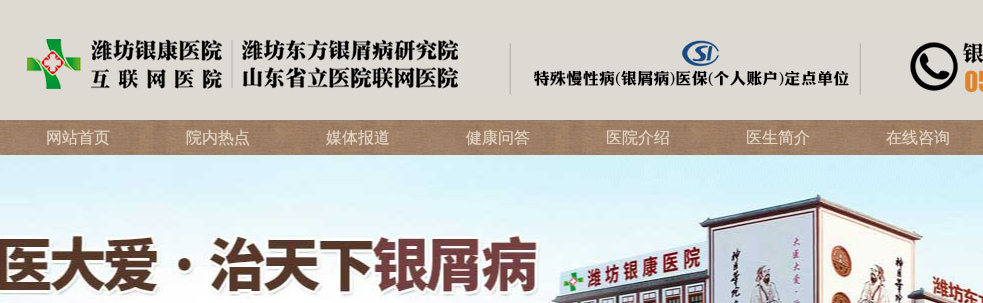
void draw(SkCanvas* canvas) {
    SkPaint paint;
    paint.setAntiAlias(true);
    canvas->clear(0xFFDEDAD1);
    canvas->drawImageRect(SkImages::DeferredFromEncodedData(SkData::MakeFromFileName("img1.png")), SkRect::MakeXYWH(24, 32, 959, 64), SkSamplingOptions());
    canvas->drawImageRect(SkImages::DeferredFromEncodedData(SkData::MakeFromFileName("img2.png")), SkRect::MakeXYWH(0, 120, 983, 35), SkSamplingOptions());
    SkFont font1(fontMgr->matchFamilyStyle("WenQuanYi Zen Hei", SkFontStyle(500, SkFontStyle::kNormal_Width, SkFontStyle::kUpright_Slant)), 16);
    font1.setSubpixel(true);
    paint.setColor(0xFFE5D8C8);
    canvas->drawString("网站首页", 46, 143, font1, paint);
    canvas->drawString("院内热点", 186, 143, font1, paint);
    canvas->drawString("媒体报道", 326, 143, font1, paint);
    canvas->drawString("健康问答", 466, 143, font1, paint);
    canvas->drawString("医院介绍", 606, 143, font1, paint);
    canvas->drawString("医生简介", 746, 143, font1, paint);
    canvas->drawString("在线咨询", 886, 143, font1, paint);
    canvas->drawImageRect(SkImages::DeferredFromEncodedData(SkData::MakeFromFileName("img3.png")), SkRect::MakeXYWH(0, 155, 983, 148), SkSamplingOptions());
}
